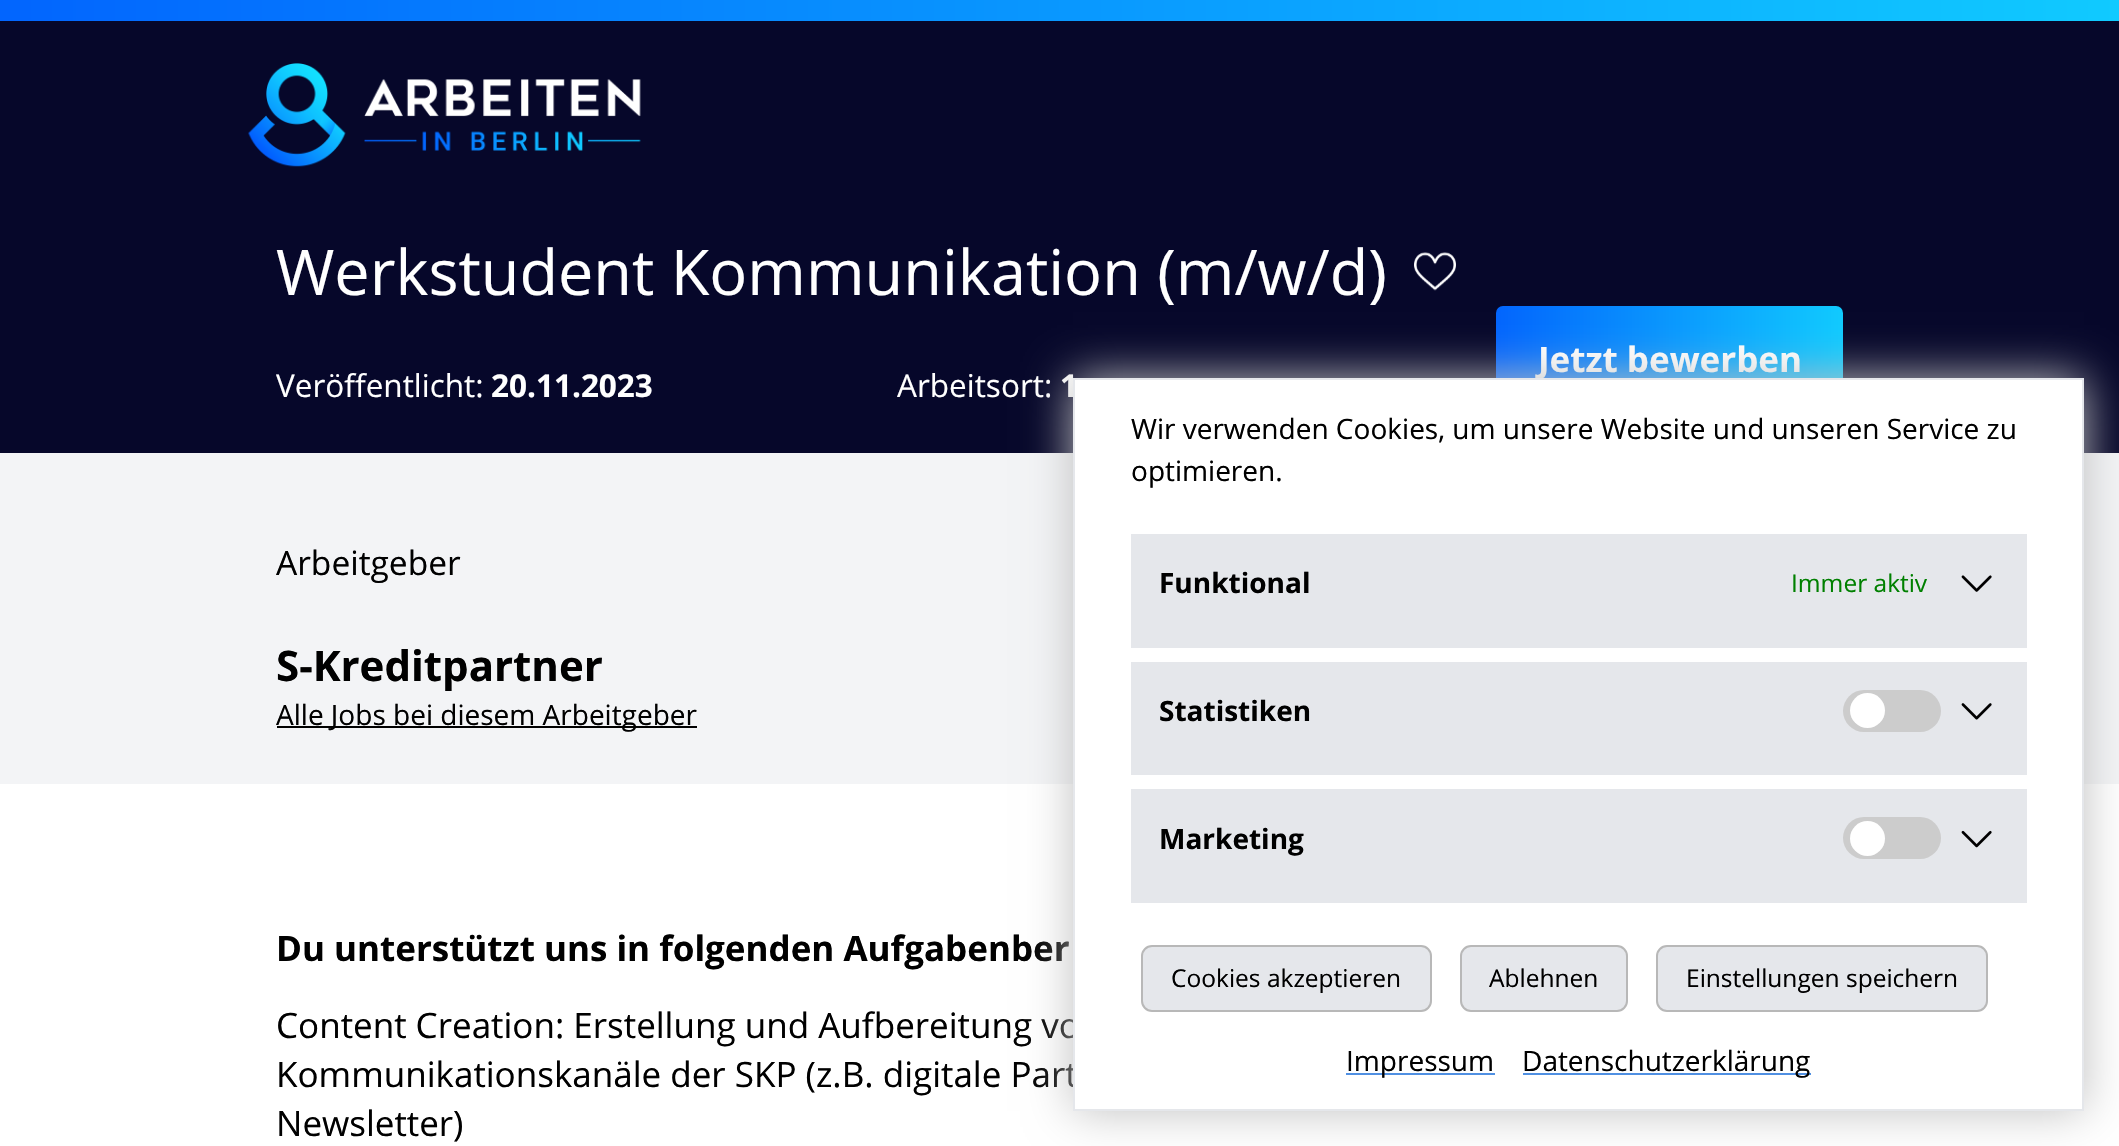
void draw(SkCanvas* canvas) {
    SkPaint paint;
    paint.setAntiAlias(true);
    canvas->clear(0xFFFFFFFF);
    {
        const SkColor colors[] = {0xFF0265FE, 0xFF10CAFF};
        const float stops[] = {0, 1};
        const SkPoint ends[] = {{0, 11}, {2119, 10}};
        paint.setShader(SkGradientShader::MakeLinear(ends, colors, stops, 2, SkTileMode::kClamp));
        paint.setAlpha(255);
    }
    canvas->drawRect(SkRect::MakeXYWH(0, 0, 2119, 21), paint);
    paint.setShader(nullptr);
    paint.setColor(0xFF06072A);
    canvas->drawRect(SkRect::MakeXYWH(0, 21, 2119, 432), paint);
    canvas->drawImageRect(SkImages::DeferredFromEncodedData(SkData::MakeFromFileName("img1.png")), SkRect::MakeXYWH(248, 63, 393, 104), SkSamplingOptions());
    SkFont font1(fontMgr->matchFamilyStyle("Open Sans", SkFontStyle::Normal()), 63);
    font1.setSubpixel(true);
    paint.setColor(0xFFFFFFFF);
    canvas->drawString("Werkstudent Kommunikation (m/w/d)", 276, 295, font1, paint);
    canvas->drawImageRect(SkImages::DeferredFromEncodedData(SkData::MakeFromFileName("img2.png")), SkRect::MakeXYWH(1414, 252, 42, 39), SkSamplingOptions());
    {
        const SkColor colors[] = {0xFF0265FE, 0xFF10CAFF};
        const float stops[] = {0, 1};
        const SkPoint ends[] = {{1496, 359}, {1843, 359}};
        paint.setShader(SkGradientShader::MakeLinear(ends, colors, stops, 2, SkTileMode::kClamp));
        paint.setAlpha(255);
    }
    canvas->drawRoundRect(SkRect::MakeXYWH(1496, 306, 347, 105), 7, 7, paint);
    SkFont font2(fontMgr->matchFamilyStyle("Open Sans", SkFontStyle::Bold()), 35);
    font2.setSubpixel(true);
    paint.setShader(nullptr);
    paint.setColor(0xFFFFFFFF);
    canvas->drawString("Jetzt bewerben", 1538, 372, font2, paint);
    SkFont font3(fontMgr->matchFamilyStyle("Open Sans", SkFontStyle::Normal()), 31.5f);
    font3.setSubpixel(true);
    canvas->drawString("Veröffentlicht:", 276, 397, font3, paint);
    SkFont font4(fontMgr->matchFamilyStyle("Open Sans", SkFontStyle::Bold()), 31.5f);
    font4.setSubpixel(true);
    canvas->drawString("20.11.2023", 491, 397, font4, paint);
    canvas->drawString("Arbeitsort:", 897, 397, font3, paint);
    canvas->drawString("1", 1060, 397, font4, paint);
    paint.setColor(0xFFF3F4F6);
    canvas->drawRect(SkRect::MakeXYWH(0, 453, 2119, 331), paint);
    SkFont font5(fontMgr->matchFamilyStyle("Open Sans", SkFontStyle::Normal()), 33.5f);
    font5.setSubpixel(true);
    paint.setColor(0xFF000000);
    canvas->drawString("Arbeitgeber", 276, 575, font5, paint);
    SkFont font6(fontMgr->matchFamilyStyle("Open Sans", SkFontStyle::Bold()), 42);
    font6.setSubpixel(true);
    canvas->drawString("S-Kreditpartner", 276, 681, font6, paint);
    canvas->drawRect(SkRect::MakeXYWH(277, 726, 420, 2), paint);
    SkFont font7(fontMgr->matchFamilyStyle("Open Sans", SkFontStyle::Normal()), 28);
    font7.setSubpixel(true);
    canvas->drawString("Alle Jobs bei diesem Arbeitgeber", 276, 725, font7, paint);
    canvas->drawString("Du unterstützt uns in folgenden Aufgabenber", 276, 961, font2, paint);
    SkFont font8(fontMgr->matchFamilyStyle("Open Sans", SkFontStyle::Normal()), 35);
    font8.setSubpixel(true);
    canvas->drawString("Content Creation: Erstellung und Aufbereitung vo", 276, 1038, font8, paint);
    canvas->drawString("Kommunikationskanäle der SKP (z.B. digitale Part", 276, 1087, font8, paint);
    canvas->drawString("Newsletter)", 276, 1136, font8, paint);
    paint.setColor(0xFFC0C0C0);
    paint.setMaskFilter(SkMaskFilter::MakeBlur(kNormal_SkBlurStyle, 22));
    canvas->drawRect(SkRect::MakeXYWH(1073, 378, 1011, 733), paint);
    paint.setMaskFilter(nullptr);
    paint.setColor(0xFFFFFFFF);
    canvas->drawRect(SkRect::MakeXYWH(1074, 379, 1009, 731), paint);
    paint.setStyle(SkPaint::kStroke_Style);
    paint.setStrokeWidth(2);
    paint.setColor(0xFFE5E7EB);
    canvas->drawRect(SkRect::MakeXYWH(1074, 379, 1009, 731), paint);
    paint.setStyle(SkPaint::kFill_Style);
    paint.setColor(0xFF000000);
    canvas->drawString("Wir verwenden Cookies, um unsere Website und unseren Service zu", 1131, 439, font7, paint);
    canvas->drawString("optimieren.", 1131, 481, font7, paint);
    paint.setColor(0xFFE5E7EB);
    canvas->drawRect(SkRect::MakeXYWH(1131, 534, 896, 114), paint);
    SkFont font9(fontMgr->matchFamilyStyle("Open Sans", SkFontStyle::Bold()), 28);
    font9.setSubpixel(true);
    paint.setColor(0xFF000000);
    canvas->drawString("Funktional", 1159, 593, font9, paint);
    SkFont font10(fontMgr->matchFamilyStyle("Open Sans", SkFontStyle::Normal()), 24.5f);
    font10.setSubpixel(true);
    paint.setColor(0xFF008000);
    canvas->drawString("Immer aktiv", 1791, 592, font10, paint);
    canvas->drawImageRect(SkImages::DeferredFromEncodedData(SkData::MakeFromFileName("img3.png")), SkRect::MakeXYWH(1961, 575, 31, 17), SkSamplingOptions());
    paint.setColor(0xFFE5E7EB);
    canvas->drawRect(SkRect::MakeXYWH(1131, 662, 896, 113), paint);
    paint.setColor(0xFF000000);
    canvas->drawString("Statistiken", 1159, 721, font9, paint);
    paint.setColor(0xFFCCCCCC);
    canvas->drawRoundRect(SkRect::MakeXYWH(1843, 690, 98, 42), 21, 21, paint);
    paint.setColor(0xFFFFFFFF);
    canvas->drawCircle(1867.5f, 710.5f, 17.5f, paint);
    canvas->drawImageRect(SkImages::DeferredFromEncodedData(SkData::MakeFromFileName("img4.png")), SkRect::MakeXYWH(1961, 703, 31, 17), SkSamplingOptions());
    paint.setColor(0xFFE5E7EB);
    canvas->drawRect(SkRect::MakeXYWH(1131, 789, 896, 114), paint);
    paint.setColor(0xFF000000);
    canvas->drawString("Marketing", 1159, 849, font9, paint);
    paint.setColor(0xFFCCCCCC);
    canvas->drawRoundRect(SkRect::MakeXYWH(1843, 817, 98, 42), 21, 21, paint);
    paint.setColor(0xFFFFFFFF);
    canvas->drawCircle(1867.5f, 838.5f, 17.5f, paint);
    canvas->drawImageRect(SkImages::DeferredFromEncodedData(SkData::MakeFromFileName("img5.png")), SkRect::MakeXYWH(1961, 830, 31, 18), SkSamplingOptions());
    paint.setColor(0xFFE5E7EB);
    canvas->drawRoundRect(SkRect::MakeXYWH(1142, 946, 289, 65), 10, 10, paint);
    paint.setStyle(SkPaint::kStroke_Style);
    paint.setColor(0xFFB8B8B8);
    canvas->drawRoundRect(SkRect::MakeXYWH(1142, 946, 289, 65), 10, 10, paint);
    paint.setStyle(SkPaint::kFill_Style);
    paint.setColor(0xFF000000);
    canvas->drawString("Cookies akzeptieren", 1171, 987, font10, paint);
    paint.setColor(0xFFE5E7EB);
    canvas->drawRoundRect(SkRect::MakeXYWH(1461, 946, 166, 65), 10, 10, paint);
    paint.setStyle(SkPaint::kStroke_Style);
    paint.setColor(0xFFB8B8B8);
    canvas->drawRoundRect(SkRect::MakeXYWH(1461, 946, 166, 65), 10, 10, paint);
    paint.setStyle(SkPaint::kFill_Style);
    paint.setColor(0xFF000000);
    canvas->drawString("Ablehnen", 1489, 987, font10, paint);
    paint.setColor(0xFFE5E7EB);
    canvas->drawRoundRect(SkRect::MakeXYWH(1657, 946, 330, 65), 10, 10, paint);
    paint.setStyle(SkPaint::kStroke_Style);
    paint.setColor(0xFFB8B8B8);
    canvas->drawRoundRect(SkRect::MakeXYWH(1657, 946, 330, 65), 10, 10, paint);
    paint.setStyle(SkPaint::kFill_Style);
    paint.setColor(0xFF000000);
    canvas->drawString("Einstellungen speichern", 1686, 987, font10, paint);
    paint.setColor(0xFF5090E2);
    canvas->drawRect(SkRect::MakeXYWH(1346, 1073, 149, 2), paint);
    paint.setColor(0xFF000000);
    canvas->drawString("Impressum", 1346, 1071, font7, paint);
    paint.setColor(0xFF5090E2);
    canvas->drawRect(SkRect::MakeXYWH(1523, 1073, 288, 2), paint);
    paint.setColor(0xFF000000);
    canvas->drawString("Datenschutzerklärung", 1522, 1071, font7, paint);
}
